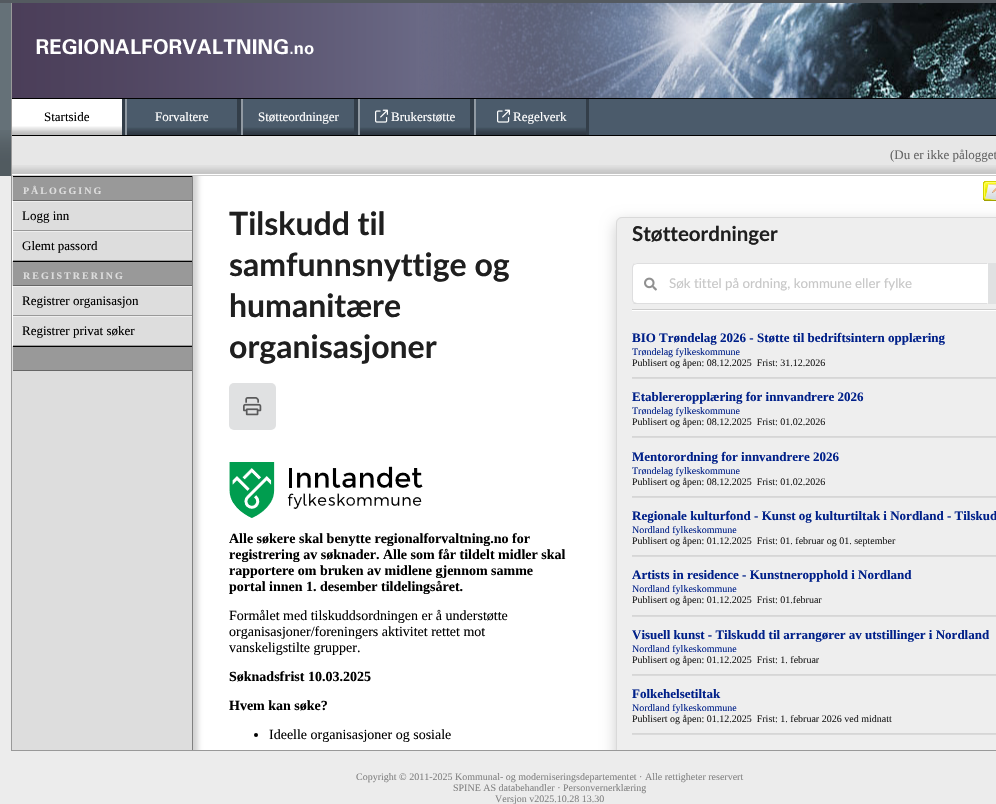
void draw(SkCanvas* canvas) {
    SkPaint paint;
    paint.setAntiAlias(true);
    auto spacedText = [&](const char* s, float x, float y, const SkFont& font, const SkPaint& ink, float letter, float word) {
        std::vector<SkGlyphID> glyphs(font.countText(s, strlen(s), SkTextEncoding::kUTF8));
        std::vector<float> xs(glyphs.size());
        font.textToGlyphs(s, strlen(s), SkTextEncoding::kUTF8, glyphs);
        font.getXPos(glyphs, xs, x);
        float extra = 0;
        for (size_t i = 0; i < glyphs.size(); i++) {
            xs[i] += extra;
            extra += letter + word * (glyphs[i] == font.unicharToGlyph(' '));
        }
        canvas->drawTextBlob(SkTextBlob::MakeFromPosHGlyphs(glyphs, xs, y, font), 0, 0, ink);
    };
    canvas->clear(0xFFECECEC);
    paint.setColor(0xFF657178);
    canvas->drawRect(SkRect::MakeXYWH(0, 3, 11, 173), paint);
    canvas->drawImageRect(SkImages::DeferredFromEncodedData(SkData::MakeFromFileName("img1.png")), SkRect::MakeXYWH(0, 130, 11, 46), SkSamplingOptions());
    paint.setColor(0xFF545A60);
    canvas->drawRect(SkRect::MakeXYWH(0, 0, 996, 3), paint);
    canvas->drawImageRect(SkImages::DeferredFromEncodedData(SkData::MakeFromFileName("img2.png")), SkRect::MakeXYWH(419, 3, 577, 95), SkSamplingOptions());
    paint.setColor(0xFF999999);
    canvas->drawRect(SkRect::MakeXYWH(11, 3, 1, 95), paint);
    canvas->drawImageRect(SkImages::DeferredFromEncodedData(SkData::MakeFromFileName("img3.png")), SkRect::MakeXYWH(12, 3, 750, 95), SkSamplingOptions());
    paint.setColor(0xFF4B5B6B);
    canvas->drawRect(SkRect::MakeXYWH(127, 99, 869, 36), paint);
    paint.setColor(0xFF000000);
    canvas->drawRect(SkRect::MakeXYWH(11, 98, 985, 1), paint);
    paint.setColor(0xFFCCCCCC);
    canvas->drawRect(SkRect::MakeXYWH(11, 175, 985, 1), paint);
    paint.setColor(0xFF999999);
    canvas->drawRect(SkRect::MakeXYWH(11, 98, 1, 78), paint);
    paint.setColor(0xFFFFFFFF);
    canvas->drawRect(SkRect::MakeXYWH(12, 99, 110, 36), paint);
    canvas->drawImageRect(SkImages::DeferredFromEncodedData(SkData::MakeFromFileName("img4.png")), SkRect::MakeXYWH(12, 127, 110, 8), SkSamplingOptions());
    paint.setColor(0xFF333E49);
    canvas->drawRect(SkRect::MakeXYWH(122, 99, 1, 36), paint);
    canvas->drawImageRect(SkImages::DeferredFromEncodedData(SkData::MakeFromFileName("img5.png")), SkRect::MakeXYWH(12, 126, 110, 9), SkSamplingOptions());
    SkFont font1(fontMgr->matchFamilyStyle("Liberation Serif", SkFontStyle::Normal()), 13);
    font1.setSubpixel(true);
    paint.setColor(0xFF000000);
    canvas->drawString("Startside", 44, 121, font1, paint);
    paint.setColor(0xFF333E49);
    canvas->drawRect(SkRect::MakeXYWH(123, 99, 2, 36), paint);
    canvas->drawImageRect(SkImages::DeferredFromEncodedData(SkData::MakeFromFileName("img6.png")), SkRect::MakeXYWH(127, 128, 110, 7), SkSamplingOptions());
    canvas->drawImageRect(SkImages::DeferredFromEncodedData(SkData::MakeFromFileName("img7.png")), SkRect::MakeXYWH(127, 128, 110, 7), SkSamplingOptions());
    canvas->drawImageRect(SkImages::DeferredFromEncodedData(SkData::MakeFromFileName("img8.png")), SkRect::MakeXYWH(127, 127, 110, 8), SkSamplingOptions());
    canvas->drawRect(SkRect::MakeXYWH(237, 99, 2, 36), paint);
    paint.setColor(0xFF9099A2);
    canvas->drawRect(SkRect::MakeXYWH(125, 99, 2, 36), paint);
    paint.setColor(0xFFFFFFFF);
    canvas->drawString("Forvaltere", 155, 121, font1, paint);
    paint.setColor(0xFF333E49);
    canvas->drawRect(SkRect::MakeXYWH(239, 99, 2, 36), paint);
    canvas->drawImageRect(SkImages::DeferredFromEncodedData(SkData::MakeFromFileName("img9.png")), SkRect::MakeXYWH(243, 128, 111, 7), SkSamplingOptions());
    canvas->drawImageRect(SkImages::DeferredFromEncodedData(SkData::MakeFromFileName("img10.png")), SkRect::MakeXYWH(243, 128, 111, 7), SkSamplingOptions());
    canvas->drawImageRect(SkImages::DeferredFromEncodedData(SkData::MakeFromFileName("img11.png")), SkRect::MakeXYWH(243, 127, 111, 8), SkSamplingOptions());
    canvas->drawRect(SkRect::MakeXYWH(354, 99, 2, 36), paint);
    paint.setColor(0xFF9099A2);
    canvas->drawRect(SkRect::MakeXYWH(241, 99, 2, 36), paint);
    paint.setColor(0xFFFFFFFF);
    canvas->drawString("Støtteordninger", 258, 121, font1, paint);
    paint.setColor(0xFF333E49);
    canvas->drawRect(SkRect::MakeXYWH(356, 99, 2, 36), paint);
    canvas->drawImageRect(SkImages::DeferredFromEncodedData(SkData::MakeFromFileName("img6.png")), SkRect::MakeXYWH(360, 128, 110, 7), SkSamplingOptions());
    canvas->drawImageRect(SkImages::DeferredFromEncodedData(SkData::MakeFromFileName("img7.png")), SkRect::MakeXYWH(360, 128, 110, 7), SkSamplingOptions());
    canvas->drawImageRect(SkImages::DeferredFromEncodedData(SkData::MakeFromFileName("img8.png")), SkRect::MakeXYWH(360, 127, 110, 8), SkSamplingOptions());
    canvas->drawRect(SkRect::MakeXYWH(470, 99, 2, 36), paint);
    paint.setColor(0xFF9099A2);
    canvas->drawRect(SkRect::MakeXYWH(358, 99, 2, 36), paint);
    canvas->drawImageRect(SkImages::DeferredFromEncodedData(SkData::MakeFromFileName("img12.png")), SkRect::MakeXYWH(375, 109, 13, 14), SkSamplingOptions());
    paint.setColor(0xFFFFFFFF);
    canvas->drawString("Brukerstøtte", 391, 121, font1, paint);
    paint.setColor(0xFF333E49);
    canvas->drawRect(SkRect::MakeXYWH(472, 99, 2, 36), paint);
    canvas->drawImageRect(SkImages::DeferredFromEncodedData(SkData::MakeFromFileName("img6.png")), SkRect::MakeXYWH(476, 128, 110, 7), SkSamplingOptions());
    canvas->drawImageRect(SkImages::DeferredFromEncodedData(SkData::MakeFromFileName("img7.png")), SkRect::MakeXYWH(476, 128, 110, 7), SkSamplingOptions());
    canvas->drawImageRect(SkImages::DeferredFromEncodedData(SkData::MakeFromFileName("img8.png")), SkRect::MakeXYWH(476, 127, 110, 8), SkSamplingOptions());
    canvas->drawRect(SkRect::MakeXYWH(586, 99, 3, 36), paint);
    paint.setColor(0xFF9099A2);
    canvas->drawRect(SkRect::MakeXYWH(474, 99, 2, 36), paint);
    canvas->drawImageRect(SkImages::DeferredFromEncodedData(SkData::MakeFromFileName("img12.png")), SkRect::MakeXYWH(497, 109, 13, 14), SkSamplingOptions());
    paint.setColor(0xFFFFFFFF);
    canvas->drawString("Regelverk", 513, 121, font1, paint);
    paint.setColor(0xFFE7E7E7);
    canvas->drawRect(SkRect::MakeXYWH(12, 136, 984, 38), paint);
    canvas->drawImageRect(SkImages::DeferredFromEncodedData(SkData::MakeFromFileName("img13.png")), SkRect::MakeXYWH(12, 165, 984, 9), SkSamplingOptions());
    paint.setColor(0xFF000000);
    canvas->drawRect(SkRect::MakeXYWH(12, 135, 984, 1), paint);
    paint.setColor(0xFFFFFFFF);
    canvas->drawRect(SkRect::MakeXYWH(12, 174, 984, 1), paint);
    paint.setColor(0xFF666666);
    canvas->drawString("(Du er ikke pålogget", 890, 159, font1, paint);
    paint.setColor(0xFFFFFFFF);
    canvas->drawRect(SkRect::MakeXYWH(193, 176, 803, 574), paint);
    paint.setColor(0xFF999999);
    canvas->drawRect(SkRect::MakeXYWH(11, 750, 985, 1), paint);
    canvas->drawRect(SkRect::MakeXYWH(11, 176, 1, 575), paint);
    canvas->drawImageRect(SkImages::DeferredFromEncodedData(SkData::MakeFromFileName("img14.png")), SkRect::MakeXYWH(983, 181, 13, 20), SkSamplingOptions());
    canvas->save();
    canvas->clipRect(SkRect::MakeXYWH(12, 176, 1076, 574));
    paint.setColor(0xFFD3D3D3);
    paint.setMaskFilter(SkMaskFilter::MakeBlur(kNormal_SkBlurStyle, 2.5f));
    canvas->drawRoundRect(SkRect::MakeXYWH(17, 167, 181, 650), 5, 5, paint);
    paint.setMaskFilter(nullptr);
    canvas->restore();
    paint.setColor(0xFFDDDDDD);
    canvas->drawRect(SkRect::MakeXYWH(12, 176, 180, 574), paint);
    canvas->save();
    canvas->clipRect(SkRect::MakeXYWH(12, 176, 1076, 574));
    paint.setColor(0xFF808080);
    canvas->drawPath(SkPathBuilder().moveTo(193, 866).lineTo(193, 167).cubicTo(193, 166, 192, 164, 192, 163).lineTo(191, 164).cubicTo(192, 165, 192, 166, 192, 167).lineTo(192, 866).cubicTo(192, 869, 190, 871, 188, 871).cubicTo(191, 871, 193, 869, 193, 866).close().detach(), paint);
    canvas->restore();
    paint.setColor(0xFF999999);
    canvas->drawRect(SkRect::MakeXYWH(13, 177, 179, 23), paint);
    paint.setColor(0xFF000000);
    canvas->drawRect(SkRect::MakeXYWH(13, 176, 179, 1), paint);
    paint.setColor(0xFF666666);
    canvas->drawRect(SkRect::MakeXYWH(13, 200, 179, 1), paint);
    SkFont font2(fontMgr->matchFamilyStyle("Liberation Serif", SkFontStyle::Bold()), 10);
    font2.setSubpixel(true);
    paint.setColor(0xFFDDDDDD);
    spacedText("PÅLOGGING", 23, 194, font2, paint, 2, 0);
    paint.setColor(0xFFEEEEEE);
    canvas->drawRect(SkRect::MakeXYWH(12, 201, 180, 1), paint);
    paint.setColor(0xFF999999);
    canvas->drawRect(SkRect::MakeXYWH(12, 230, 180, 1), paint);
    paint.setColor(0xFFFFFFFF);
    canvas->drawRect(SkRect::MakeXYWH(12, 201, 1, 30), paint);
    paint.setColor(0xFF000000);
    canvas->drawString("Logg inn", 22, 220, font1, paint);
    paint.setColor(0xFFEEEEEE);
    canvas->drawRect(SkRect::MakeXYWH(12, 231, 180, 1), paint);
    paint.setColor(0xFF999999);
    canvas->drawRect(SkRect::MakeXYWH(12, 260, 180, 1), paint);
    paint.setColor(0xFFFFFFFF);
    canvas->drawRect(SkRect::MakeXYWH(12, 231, 1, 30), paint);
    paint.setColor(0xFF000000);
    canvas->drawString("Glemt passord", 22, 250, font1, paint);
    paint.setColor(0xFF999999);
    canvas->drawRect(SkRect::MakeXYWH(13, 262, 179, 23), paint);
    paint.setColor(0xFF000000);
    canvas->drawRect(SkRect::MakeXYWH(13, 261, 179, 1), paint);
    paint.setColor(0xFF666666);
    canvas->drawRect(SkRect::MakeXYWH(13, 285, 179, 1), paint);
    paint.setColor(0xFFDDDDDD);
    spacedText("REGISTRERING", 23, 279, font2, paint, 2, 0);
    paint.setColor(0xFFEEEEEE);
    canvas->drawRect(SkRect::MakeXYWH(12, 286, 180, 1), paint);
    paint.setColor(0xFF999999);
    canvas->drawRect(SkRect::MakeXYWH(12, 315, 180, 1), paint);
    paint.setColor(0xFFFFFFFF);
    canvas->drawRect(SkRect::MakeXYWH(12, 286, 1, 30), paint);
    paint.setColor(0xFF000000);
    canvas->drawString("Registrer organisasjon", 22, 305, font1, paint);
    paint.setColor(0xFFEEEEEE);
    canvas->drawRect(SkRect::MakeXYWH(12, 316, 180, 1), paint);
    paint.setColor(0xFF999999);
    canvas->drawRect(SkRect::MakeXYWH(12, 345, 180, 1), paint);
    paint.setColor(0xFFFFFFFF);
    canvas->drawRect(SkRect::MakeXYWH(12, 316, 1, 30), paint);
    paint.setColor(0xFF000000);
    canvas->drawString("Registrer privat søker", 22, 335, font1, paint);
    paint.setColor(0xFF999999);
    canvas->drawRect(SkRect::MakeXYWH(13, 347, 179, 23), paint);
    paint.setColor(0xFF000000);
    canvas->drawRect(SkRect::MakeXYWH(13, 346, 179, 1), paint);
    paint.setColor(0xFF666666);
    canvas->drawRect(SkRect::MakeXYWH(13, 370, 179, 1), paint);
    SkFont font3(fontMgr->matchFamilyStyle("Lato", SkFontStyle::Bold()), 32);
    font3.setSubpixel(true);
    paint.setColor(0xFF1F1F1F);
    canvas->drawString("Tilskudd til", 229, 235, font3, paint);
    canvas->drawString("samfunnsnyttige og", 229, 276, font3, paint);
    canvas->drawString("humanitære", 229, 317, font3, paint);
    canvas->drawString("organisasjoner", 229, 358, font3, paint);
    paint.setColor(0xFFE0E1E2);
    canvas->drawRoundRect(SkRect::MakeXYWH(229, 383, 47, 47), 5, 5, paint);
    canvas->drawImageRect(SkImages::DeferredFromEncodedData(SkData::MakeFromFileName("img15.png")), SkRect::MakeXYWH(243, 397, 19, 19), SkSamplingOptions());
    canvas->drawImageRect(SkImages::DeferredFromEncodedData(SkData::MakeFromFileName("img16.png")), SkRect::MakeXYWH(229, 462, 194, 56), SkSamplingOptions());
    SkFont font4(fontMgr->matchFamilyStyle("Liberation Serif", SkFontStyle::Bold()), 14);
    font4.setSubpixel(true);
    paint.setColor(0xFF000000);
    canvas->drawString("Alle søkere skal benytte regionalforvaltning.no for", 229, 543, font4, paint);
    canvas->drawString("registrering av søknader. Alle som får tildelt midler skal", 229, 559, font4, paint);
    canvas->drawString("rapportere om bruken av midlene gjennom samme", 229, 575, font4, paint);
    canvas->drawString("portal innen 1. desember tildelingsåret.", 229, 591, font4, paint);
    SkFont font5(fontMgr->matchFamilyStyle("Liberation Serif", SkFontStyle::Normal()), 14);
    font5.setSubpixel(true);
    canvas->drawString("Formålet med tilskuddsordningen er å understøtte", 229, 620, font5, paint);
    canvas->drawString("organisasjoner/foreningers aktivitet rettet mot", 229, 636, font5, paint);
    canvas->drawString("vanskeligstilte grupper.", 229, 652, font5, paint);
    canvas->drawString("Søknadsfrist 10.03.2025", 229, 681, font4, paint);
    canvas->drawString("Hvem kan søke?", 229, 710, font4, paint);
    canvas->drawCircle(256, 735, 2, paint);
    canvas->drawString("Ideelle organisasjoner og sosiale", 269, 739, font5, paint);
    canvas->save();
    canvas->clipRect(SkRect::MakeXYWH(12, 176, 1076, 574));
    paint.setColor(0x33000000);
    paint.setMaskFilter(SkMaskFilter::MakeBlur(kNormal_SkBlurStyle, 7.5f));
    canvas->drawRoundRect(SkRect::MakeXYWH(616, 222, 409, 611), 6, 6, paint);
    paint.setMaskFilter(nullptr);
    canvas->restore();
    paint.setColor(0xFFEEEEEE);
    canvas->drawPath(SkPathBuilder().moveTo(622, 217).lineTo(996, 217).cubicTo(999.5f, 217, 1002, 219.5f, 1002, 223).lineTo(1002, 750).lineTo(616, 750).lineTo(616, 223).cubicTo(616, 219.5f, 618.5f, 217, 622, 217).close().detach(), paint);
    SkFont font6(fontMgr->matchFamilyStyle("Liberation Serif", SkFontStyle::Normal()), 10);
    font6.setSubpixel(true);
    paint.setColor(0xFF838383);
    canvas->drawString("Copyright © 2011-2025 Kommunal- og moderniseringsdepartementet · Alle rettigheter reservert", 356, 780, font6, paint);
    canvas->drawString("SPINE AS databehandler · Personvernerklæring", 453, 791, font6, paint);
    canvas->save();
    canvas->clipRect(SkRect::MakeXYWH(12, 176, 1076, 574));
    paint.setStyle(SkPaint::kStroke_Style);
    paint.setStrokeWidth(1);
    paint.setColor(0xFFD9D9D9);
    canvas->drawRoundRect(SkRect::MakeXYWH(616.5f, 217.5f, 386, 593), 5.5f, 5.5f, paint);
    canvas->restore();
    SkFont font7(fontMgr->matchFamilyStyle("Lato", SkFontStyle::Bold()), 20.5f);
    font7.setSubpixel(true);
    paint.setStyle(SkPaint::kFill_Style);
    paint.setColor(0xFF1F1F1F);
    canvas->drawString("Støtteordninger", 632, 241, font7, paint);
    paint.setColor(0xFFFFFFFF);
    canvas->drawPath(SkPathBuilder().moveTo(637, 263).lineTo(988, 263).lineTo(988, 304).lineTo(637, 304).cubicTo(634, 304, 632, 302, 632, 299).lineTo(632, 268).cubicTo(632, 265, 634, 263, 637, 263).close().detach(), paint);
    canvas->drawImageRect(SkImages::DeferredFromEncodedData(SkData::MakeFromFileName("img17.png")), SkRect::MakeXYWH(644, 277, 13, 14), SkSamplingOptions());
    paint.setColor(0x26222426);
    canvas->drawPath(SkPathBuilder().moveTo(637, 263).cubicTo(636, 263, 634, 264, 633, 264).lineTo(634, 265).lineTo(637, 264).lineTo(987, 264).lineTo(988, 263).close().detach(), paint);
    canvas->drawPath(SkPathBuilder().moveTo(988, 304).lineTo(987, 303).lineTo(637, 303).lineTo(634, 302).lineTo(633, 303).cubicTo(634, 304, 636, 304, 637, 304).close().detach(), paint);
    canvas->drawPath(SkPathBuilder().moveTo(632, 268).lineTo(632, 299).cubicTo(632, 300.5f, 632.5f, 302, 633.5f, 302.5f).lineTo(634, 302).cubicTo(633.5f, 301, 633, 300, 633, 299).lineTo(633, 268).cubicTo(633, 267, 633.5f, 266, 634, 265).lineTo(633.5f, 264.5f).cubicTo(632.5f, 265, 632, 266.5f, 632, 268).close().detach(), paint);
    SkFont font8(fontMgr->matchFamilyStyle("Lato", SkFontStyle::Normal()), 13.3f);
    font8.setSubpixel(true);
    paint.setColor(0xFFC7C7C7);
    canvas->drawString("Søk tittel på ordning, kommune eller fylke", 669, 288, font8, paint);
    paint.setColor(0xFFE0E1E2);
    canvas->drawRect(SkRect::MakeXYWH(988, 263, 8, 41), paint);
    paint.setColor(0xFFCCCCCC);
    canvas->drawRect(SkRect::MakeXYWH(632, 309, 364, 1), paint);
    paint.setColor(0xFFFFFFFF);
    canvas->drawRect(SkRect::MakeXYWH(632, 310, 364, 1), paint);
    paint.setColor(0xFFD6D6D6);
    canvas->drawRect(SkRect::MakeXYWH(632, 377, 364, 1), paint);
    SkFont font9(fontMgr->matchFamilyStyle("Liberation Serif", SkFontStyle::Bold()), 13);
    font9.setSubpixel(true);
    paint.setColor(0xFF002089);
    canvas->drawString("BIO Trøndelag 2026 - Støtte til bedriftsintern opplæring", 632, 342, font9, paint);
    canvas->drawString("Trøndelag fylkeskommune", 632, 355, font6, paint);
    paint.setColor(0xFF1F1F1F);
    canvas->drawString("Publisert og åpen: 08.12.2025  Frist: 31.12.2026", 632, 366, font6, paint);
    paint.setColor(0xFFD6D6D6);
    canvas->drawRect(SkRect::MakeXYWH(632, 436, 364, 1), paint);
    paint.setColor(0xFFDADADA);
    canvas->drawRect(SkRect::MakeXYWH(632, 378, 364, 1), paint);
    paint.setColor(0xFF002089);
    canvas->drawString("Etablereropplæring for innvandrere 2026", 632, 401, font9, paint);
    canvas->drawString("Trøndelag fylkeskommune", 632, 414, font6, paint);
    paint.setColor(0xFF1F1F1F);
    canvas->drawString("Publisert og åpen: 08.12.2025  Frist: 01.02.2026", 632, 425, font6, paint);
    paint.setColor(0xFFD6D6D6);
    canvas->drawRect(SkRect::MakeXYWH(632, 496, 364, 1), paint);
    paint.setColor(0xFFDADADA);
    canvas->drawRect(SkRect::MakeXYWH(632, 437, 364, 1), paint);
    paint.setColor(0xFF002089);
    canvas->drawString("Mentorordning for innvandrere 2026", 632, 461, font9, paint);
    canvas->drawString("Trøndelag fylkeskommune", 632, 474, font6, paint);
    paint.setColor(0xFF1F1F1F);
    canvas->drawString("Publisert og åpen: 08.12.2025  Frist: 01.02.2026", 632, 485, font6, paint);
    paint.setColor(0xFFD6D6D6);
    canvas->drawRect(SkRect::MakeXYWH(632, 555, 364, 1), paint);
    paint.setColor(0xFFDADADA);
    canvas->drawRect(SkRect::MakeXYWH(632, 497, 364, 1), paint);
    paint.setColor(0xFF002089);
    canvas->drawString("Regionale kulturfond - Kunst og kulturtiltak i Nordland - Tilskud", 632, 520, font9, paint);
    canvas->drawString("Nordland fylkeskommune", 632, 533, font6, paint);
    paint.setColor(0xFF1F1F1F);
    canvas->drawString("Publisert og åpen: 01.12.2025  Frist: 01. februar og 01. september", 632, 544, font6, paint);
    paint.setColor(0xFFD6D6D6);
    canvas->drawRect(SkRect::MakeXYWH(632, 615, 364, 1), paint);
    paint.setColor(0xFFDADADA);
    canvas->drawRect(SkRect::MakeXYWH(632, 556, 364, 1), paint);
    paint.setColor(0xFF002089);
    canvas->drawString("Artists in residence - Kunstneropphold i Nordland", 632, 579, font9, paint);
    canvas->drawString("Nordland fylkeskommune", 632, 592, font6, paint);
    paint.setColor(0xFF1F1F1F);
    canvas->drawString("Publisert og åpen: 01.12.2025  Frist: 01.februar", 632, 603, font6, paint);
    paint.setColor(0xFFD6D6D6);
    canvas->drawRect(SkRect::MakeXYWH(632, 674, 364, 1), paint);
    paint.setColor(0xFFDADADA);
    canvas->drawRect(SkRect::MakeXYWH(632, 616, 364, 1), paint);
    paint.setColor(0xFF002089);
    canvas->drawString("Visuell kunst - Tilskudd til arrangører av utstillinger i Nordland", 632, 639, font9, paint);
    canvas->drawString("Nordland fylkeskommune", 632, 652, font6, paint);
    paint.setColor(0xFF1F1F1F);
    canvas->drawString("Publisert og åpen: 01.12.2025  Frist: 1. februar", 632, 663, font6, paint);
    paint.setColor(0xFFD6D6D6);
    canvas->drawRect(SkRect::MakeXYWH(632, 733, 364, 1), paint);
    paint.setColor(0xFFDADADA);
    canvas->drawRect(SkRect::MakeXYWH(632, 675, 364, 1), paint);
    paint.setColor(0xFF002089);
    canvas->drawString("Folkehelsetiltak", 632, 698, font9, paint);
    canvas->drawString("Nordland fylkeskommune", 632, 711, font6, paint);
    paint.setColor(0xFF1F1F1F);
    canvas->drawString("Publisert og åpen: 01.12.2025  Frist: 1. februar 2026 ved midnatt", 632, 722, font6, paint);
    paint.setColor(0xFFDADADA);
    canvas->drawRect(SkRect::MakeXYWH(632, 734, 364, 1), paint);
    paint.setColor(0xFF838383);
    canvas->drawString("Versjon v2025.10.28 13.30", 495, 802, font6, paint);
}
